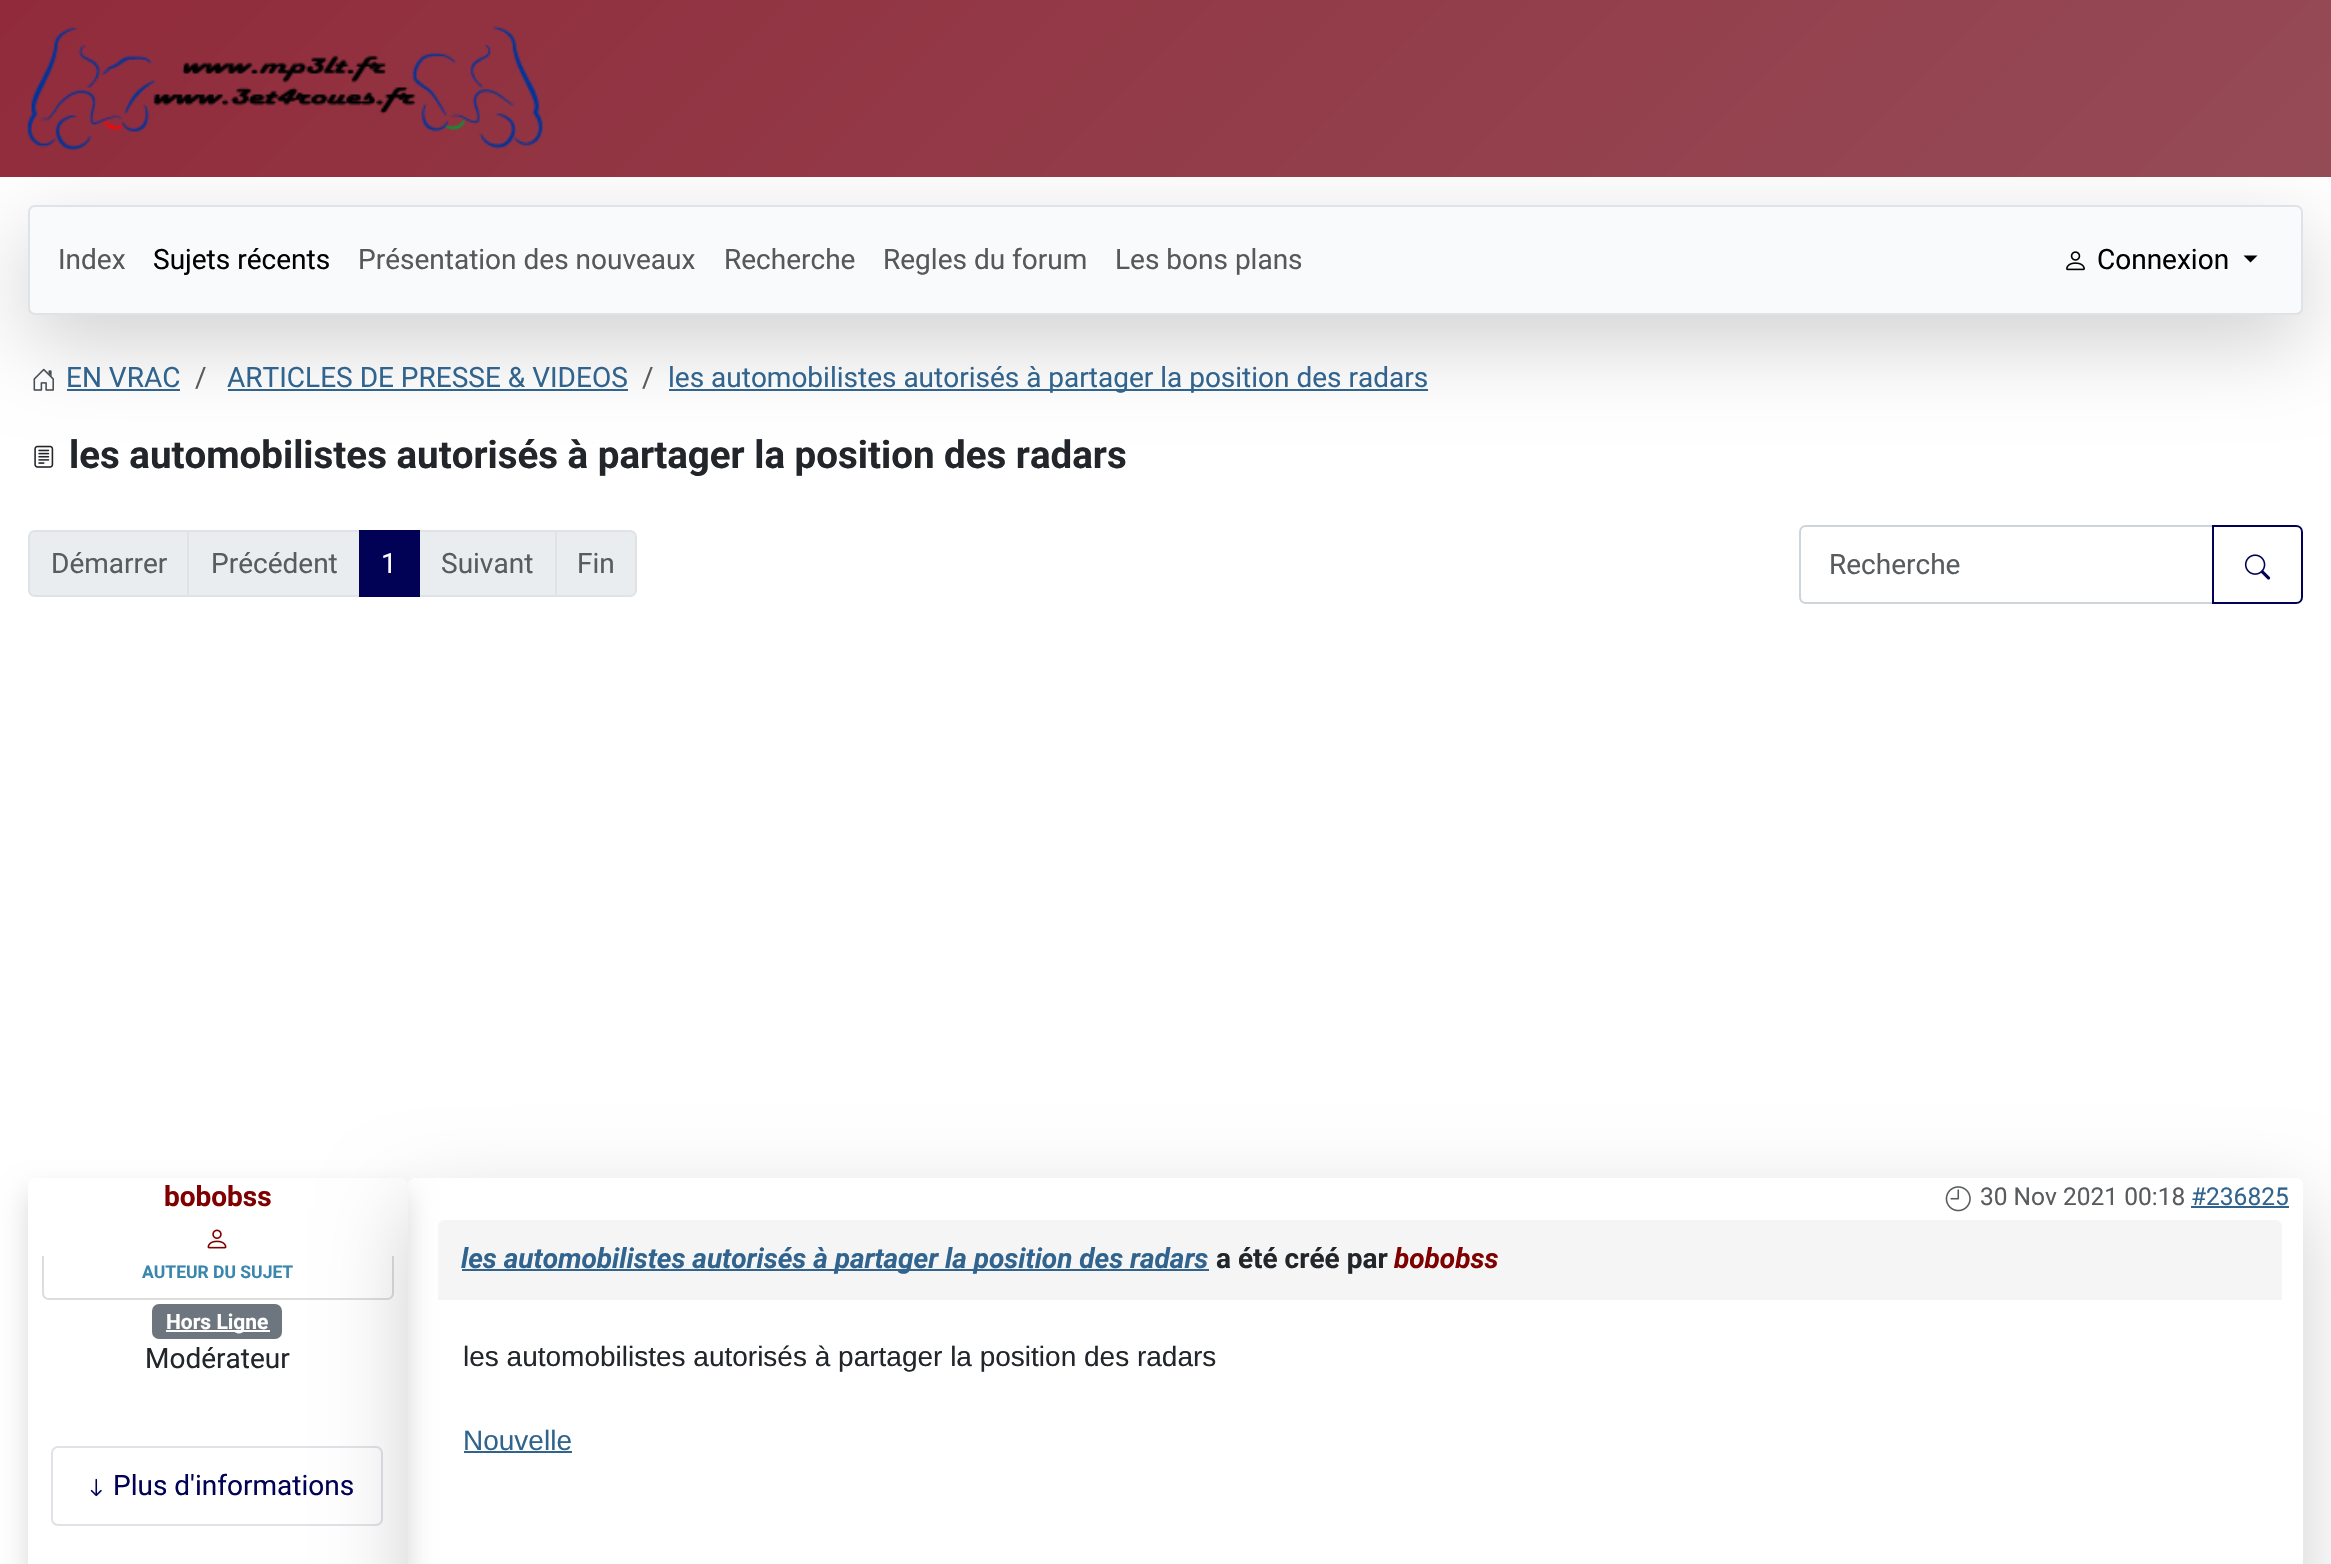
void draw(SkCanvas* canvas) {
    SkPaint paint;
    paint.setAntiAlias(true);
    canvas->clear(0xFFFFFFFF);
    canvas->drawImageRect(SkImages::DeferredFromEncodedData(SkData::MakeFromFileName("img4.png")), SkRect::MakeXYWH(34, 445, 20, 23), SkSamplingOptions());
    paint.setColor(0x2E000000);
    paint.setMaskFilter(SkMaskFilter::MakeBlur(kNormal_SkBlurStyle, 42));
    canvas->drawRoundRect(SkRect::MakeXYWH(28, 233, 2275, 110), 7, 7, paint);
    paint.setMaskFilter(nullptr);
    {
        const SkColor colors[] = {0xFF912B3B, 0xFF954B56};
        const float stops[] = {0, 1};
        const SkPoint ends[] = {{539, -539}, {1792, 715}};
        paint.setShader(SkGradientShader::MakeLinear(ends, colors, stops, 2, SkTileMode::kClamp));
        paint.setAlpha(255);
    }
    canvas->drawRect(SkRect::MakeXYWH(0, 0, 2331, 177), paint);
    canvas->drawImageRect(SkImages::DeferredFromEncodedData(SkData::MakeFromFileName("img1.png")), SkRect::MakeXYWH(27, 26, 516, 125), SkSamplingOptions());
    paint.setShader(nullptr);
    paint.setColor(0xFFF9FAFB);
    canvas->drawRoundRect(SkRect::MakeXYWH(29, 206, 2273, 108), 6, 6, paint);
    paint.setStyle(SkPaint::kStroke_Style);
    paint.setStrokeWidth(2);
    paint.setColor(0xFFDFE3E7);
    canvas->drawRoundRect(SkRect::MakeXYWH(29, 206, 2273, 108), 6, 6, paint);
    SkFont font1(fontMgr->matchFamilyStyle("Roboto", SkFontStyle::Normal()), 28);
    font1.setSubpixel(true);
    paint.setStyle(SkPaint::kFill_Style);
    paint.setColor(0xFF575858);
    canvas->drawString("Index", 58, 269, font1, paint);
    paint.setColor(0xFF000000);
    canvas->drawString("Sujets récents", 153, 269, font1, paint);
    paint.setColor(0xFF575858);
    canvas->drawString("Présentation des nouveaux", 358, 269, font1, paint);
    canvas->drawString("Recherche", 724, 269, font1, paint);
    canvas->drawString("Regles du forum", 883, 269, font1, paint);
    canvas->drawString("Les bons plans", 1115, 269, font1, paint);
    canvas->drawImageRect(SkImages::DeferredFromEncodedData(SkData::MakeFromFileName("img2.png")), SkRect::MakeXYWH(2066, 251, 19, 20), SkSamplingOptions());
    paint.setColor(0xFF000000);
    canvas->drawString("Connexion", 2097, 269, font1, paint);
    canvas->drawPath(SkPathBuilder().moveTo(2243.5f, 255.5f).lineTo(2257.5f, 255.5f).lineTo(2250.5f, 262.5f).close().detach(), paint);
    canvas->drawImageRect(SkImages::DeferredFromEncodedData(SkData::MakeFromFileName("img3.png")), SkRect::MakeXYWH(33, 368, 21, 23), SkSamplingOptions());
    paint.setColor(0xFF30638D);
    canvas->drawString("EN VRAC", 66, 387, font1, paint);
    canvas->drawRect(SkRect::MakeXYWH(67, 389, 113, 2), paint);
    paint.setColor(0xFF595C5F);
    canvas->drawString("/", 195, 387, font1, paint);
    paint.setColor(0xFF30638D);
    canvas->drawString("ARTICLES DE PRESSE & VIDEOS", 227, 387, font1, paint);
    canvas->drawRect(SkRect::MakeXYWH(228, 389, 400, 2), paint);
    paint.setColor(0xFF595C5F);
    canvas->drawString("/", 642, 387, font1, paint);
    paint.setColor(0xFF30638D);
    canvas->drawRect(SkRect::MakeXYWH(669, 389, 759, 2), paint);
    canvas->drawString("les automobilistes autorisés à partager la position des radars", 668, 387, font1, paint);
    SkFont font2(fontMgr->matchFamilyStyle("Roboto", SkFontStyle::Bold()), 38.5f);
    font2.setSubpixel(true);
    paint.setColor(0xFF22262A);
    canvas->drawString("les automobilistes autorisés à partager la position des radars", 69, 468, font2, paint);
    paint.setColor(0xFFEAEDF0);
    canvas->drawPath(SkPathBuilder().moveTo(35, 531).lineTo(188, 531).lineTo(188, 596).lineTo(35, 596).cubicTo(31.5f, 596, 29, 593.5f, 29, 590).lineTo(29, 537).cubicTo(29, 533.5f, 31.5f, 531, 35, 531).close().detach(), paint);
    paint.setStyle(SkPaint::kStroke_Style);
    paint.setColor(0xFFDFE3E7);
    canvas->drawPath(SkPathBuilder().moveTo(35, 531).lineTo(188, 531).lineTo(188, 596).lineTo(35, 596).cubicTo(31.5f, 596, 29, 593.5f, 29, 590).lineTo(29, 537).cubicTo(29, 533.5f, 31.5f, 531, 35, 531).close().detach(), paint);
    paint.setStyle(SkPaint::kFill_Style);
    paint.setColor(0xFF595C5F);
    canvas->drawString("Démarrer", 51, 573, font1, paint);
    paint.setColor(0xFFEAEDF0);
    canvas->drawRect(SkRect::MakeXYWH(188, 531, 172, 65), paint);
    paint.setStyle(SkPaint::kStroke_Style);
    paint.setColor(0xFFDFE3E7);
    canvas->drawRect(SkRect::MakeXYWH(188, 531, 172, 65), paint);
    paint.setStyle(SkPaint::kFill_Style);
    paint.setColor(0xFF595C5F);
    canvas->drawString("Précédent", 211, 573, font1, paint);
    paint.setColor(0xFFEAEDF0);
    canvas->drawRect(SkRect::MakeXYWH(419, 531, 137, 65), paint);
    paint.setStyle(SkPaint::kStroke_Style);
    paint.setColor(0xFFDFE3E7);
    canvas->drawRect(SkRect::MakeXYWH(419, 531, 137, 65), paint);
    paint.setStyle(SkPaint::kFill_Style);
    paint.setColor(0xFF010156);
    canvas->drawRect(SkRect::MakeXYWH(359, 530, 61, 67), paint);
    paint.setColor(0xFFFFFFFF);
    canvas->drawString("1", 381, 573, font1, paint);
    paint.setColor(0xFF595C5F);
    canvas->drawString("Suivant", 441, 573, font1, paint);
    paint.setColor(0xFFEAEDF0);
    canvas->drawPath(SkPathBuilder().moveTo(556, 531).lineTo(630, 531).cubicTo(633.5f, 531, 636, 533.5f, 636, 537).lineTo(636, 590).cubicTo(636, 593.5f, 633.5f, 596, 630, 596).lineTo(556, 596).close().detach(), paint);
    paint.setStyle(SkPaint::kStroke_Style);
    paint.setColor(0xFFDFE3E7);
    canvas->drawPath(SkPathBuilder().moveTo(556, 531).lineTo(630, 531).cubicTo(633.5f, 531, 636, 533.5f, 636, 537).lineTo(636, 590).cubicTo(636, 593.5f, 633.5f, 596, 630, 596).lineTo(556, 596).close().detach(), paint);
    paint.setStyle(SkPaint::kFill_Style);
    paint.setColor(0xFF595C5F);
    canvas->drawString("Fin", 577, 573, font1, paint);
    paint.setStyle(SkPaint::kStroke_Style);
    paint.setColor(0xFFCED4DA);
    canvas->drawPath(SkPathBuilder().moveTo(1806, 526).lineTo(2213, 526).lineTo(2213, 603).lineTo(1806, 603).cubicTo(1802.5f, 603, 1800, 600.5f, 1800, 597).lineTo(1800, 532).cubicTo(1800, 528.5f, 1802.5f, 526, 1806, 526).close().detach(), paint);
    paint.setStyle(SkPaint::kFill_Style);
    paint.setColor(0xFF595C5F);
    canvas->drawString("Recherche", 1829, 574, font1, paint);
    paint.setStyle(SkPaint::kStroke_Style);
    paint.setColor(0xFF010156);
    canvas->drawPath(SkPathBuilder().moveTo(2213, 526).lineTo(2296, 526).cubicTo(2299.5f, 526, 2302, 528.5f, 2302, 532).lineTo(2302, 597).cubicTo(2302, 600.5f, 2299.5f, 603, 2296, 603).lineTo(2213, 603).close().detach(), paint);
    canvas->drawImageRect(SkImages::DeferredFromEncodedData(SkData::MakeFromFileName("img5.png")), SkRect::MakeXYWH(2244, 554, 27, 26), SkSamplingOptions());
    canvas->save();
    canvas->clipPath(SkPathBuilder(SkPathFillType::kEvenOdd).moveTo(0, 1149).lineTo(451, 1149).lineTo(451, 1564).lineTo(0, 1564).close().moveTo(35, 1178).lineTo(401, 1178).cubicTo(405, 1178, 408, 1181, 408, 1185).lineTo(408, 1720).cubicTo(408, 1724, 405, 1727, 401, 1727).lineTo(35, 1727).cubicTo(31, 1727, 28, 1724, 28, 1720).lineTo(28, 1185).cubicTo(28, 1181, 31, 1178, 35, 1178).close().detach(), true);
    paint.setStyle(SkPaint::kFill_Style);
    paint.setColor(0x26000000);
    paint.setMaskFilter(SkMaskFilter::MakeBlur(kNormal_SkBlurStyle, 14));
    canvas->drawRoundRect(SkRect::MakeXYWH(28, 1192, 380, 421), 7, 7, paint);
    paint.setMaskFilter(nullptr);
    canvas->restore();
    SkFont font3(fontMgr->matchFamilyStyle("Roboto", SkFontStyle::Bold()), 28);
    font3.setSubpixel(true);
    paint.setColor(0xFF800000);
    canvas->drawString("bobobss", 164, 1206, font3, paint);
    canvas->drawImageRect(SkImages::DeferredFromEncodedData(SkData::MakeFromFileName("img6.png")), SkRect::MakeXYWH(207, 1229, 20, 20), SkSamplingOptions());
    paint.setColor(0xFFDDDDDD);
    canvas->drawPath(SkPathBuilder(SkPathFillType::kEvenOdd).moveTo(42, 1256).lineTo(394, 1256).lineTo(394, 1293).cubicTo(394, 1297, 391, 1300, 387, 1300).lineTo(49, 1300).cubicTo(45, 1300, 42, 1297, 42, 1293).close().moveTo(44, 1256).lineTo(392, 1256).lineTo(392, 1293).cubicTo(392, 1296, 390, 1298, 387, 1298).lineTo(49, 1298).cubicTo(46, 1298, 44, 1296, 44, 1293).close().detach(), paint);
    SkFont font4(fontMgr->matchFamilyStyle("Roboto", SkFontStyle::Bold()), 17.5f);
    font4.setSubpixel(true);
    paint.setColor(0xFF3A87AD);
    canvas->drawString("AUTEUR DU SUJET", 142, 1278, font4, paint);
    paint.setColor(0xFF6D757E);
    canvas->drawRoundRect(SkRect::MakeXYWH(152, 1304, 130, 35), 7, 7, paint);
    paint.setColor(0xFFFFFFFF);
    canvas->drawRect(SkRect::MakeXYWH(166, 1330, 104, 2), paint);
    SkFont font5(fontMgr->matchFamilyStyle("Roboto", SkFontStyle::Bold()), 21);
    font5.setSubpixel(true);
    canvas->drawString("Hors Ligne", 166, 1329, font5, paint);
    paint.setColor(0xFF22262A);
    canvas->drawString("Modérateur", 145, 1368, font1, paint);
    paint.setStyle(SkPaint::kStroke_Style);
    paint.setColor(0xFFDFE3E7);
    canvas->drawRoundRect(SkRect::MakeXYWH(52, 1447, 330, 78), 6, 6, paint);
    canvas->drawImageRect(SkImages::DeferredFromEncodedData(SkData::MakeFromFileName("img7.png")), SkRect::MakeXYWH(90, 1478, 12, 19), SkSamplingOptions());
    paint.setStyle(SkPaint::kFill_Style);
    paint.setColor(0xFF010156);
    canvas->drawString("Plus d'informations", 113, 1495, font1, paint);
    canvas->save();
    canvas->clipPath(SkPathBuilder(SkPathFillType::kEvenOdd).moveTo(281, 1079).lineTo(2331, 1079).lineTo(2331, 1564).lineTo(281, 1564).close().moveTo(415, 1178).lineTo(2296, 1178).cubicTo(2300, 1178, 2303, 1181, 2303, 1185).lineTo(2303, 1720).cubicTo(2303, 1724, 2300, 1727, 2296, 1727).lineTo(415, 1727).cubicTo(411, 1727, 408, 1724, 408, 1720).lineTo(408, 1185).cubicTo(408, 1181, 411, 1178, 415, 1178).close().detach(), true);
    paint.setColor(0x2E000000);
    paint.setMaskFilter(SkMaskFilter::MakeBlur(kNormal_SkBlurStyle, 42));
    canvas->drawRoundRect(SkRect::MakeXYWH(408, 1206, 1895, 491), 7, 7, paint);
    paint.setMaskFilter(nullptr);
    canvas->restore();
    canvas->drawImageRect(SkImages::DeferredFromEncodedData(SkData::MakeFromFileName("img8.png")), SkRect::MakeXYWH(1945, 1186, 26, 26), SkSamplingOptions());
    SkFont font6(fontMgr->matchFamilyStyle("Roboto", SkFontStyle::Normal()), 24.5f);
    font6.setSubpixel(true);
    paint.setColor(0xFF595C5F);
    canvas->drawString("30 Nov 2021 00:18", 1980, 1205, font6, paint);
    paint.setColor(0xFF30638D);
    canvas->drawString("#236825", 2191, 1205, font6, paint);
    canvas->drawRect(SkRect::MakeXYWH(2191, 1206, 98, 2), paint);
    paint.setColor(0xFFF5F5F5);
    canvas->drawPath(SkPathBuilder().moveTo(445, 1220).lineTo(2275, 1220).cubicTo(2279, 1220, 2282, 1223, 2282, 1227).lineTo(2282, 1300).lineTo(438, 1300).lineTo(438, 1227).cubicTo(438, 1223, 441, 1220, 445, 1220).close().detach(), paint);
    paint.setColor(0xFF30638D);
    canvas->drawRect(SkRect::MakeXYWH(462, 1269, 747, 2), paint);
    SkFont font7(fontMgr->matchFamilyStyle("Roboto", SkFontStyle::BoldItalic()), 28);
    font7.setSubpixel(true);
    canvas->drawString("les automobilistes autorisés à partager la position des radars", 461, 1268, font7, paint);
    paint.setColor(0xFF22262A);
    canvas->drawString("a été créé par", 1216, 1268, font3, paint);
    paint.setColor(0xFF800000);
    canvas->drawString("bobobss", 1394, 1268, font7, paint);
    SkFont font8(fontMgr->matchFamilyStyle("Liberation Sans", SkFontStyle::Normal()), 28);
    font8.setSubpixel(true);
    paint.setColor(0xFF22262A);
    canvas->drawString("les automobilistes autorisés à partager la position des radars", 463, 1366, font8, paint);
    paint.setColor(0xFF30638D);
    canvas->drawString("Nouvelle", 463, 1450, font8, paint);
    canvas->drawRect(SkRect::MakeXYWH(464, 1451, 108, 2), paint);
}
